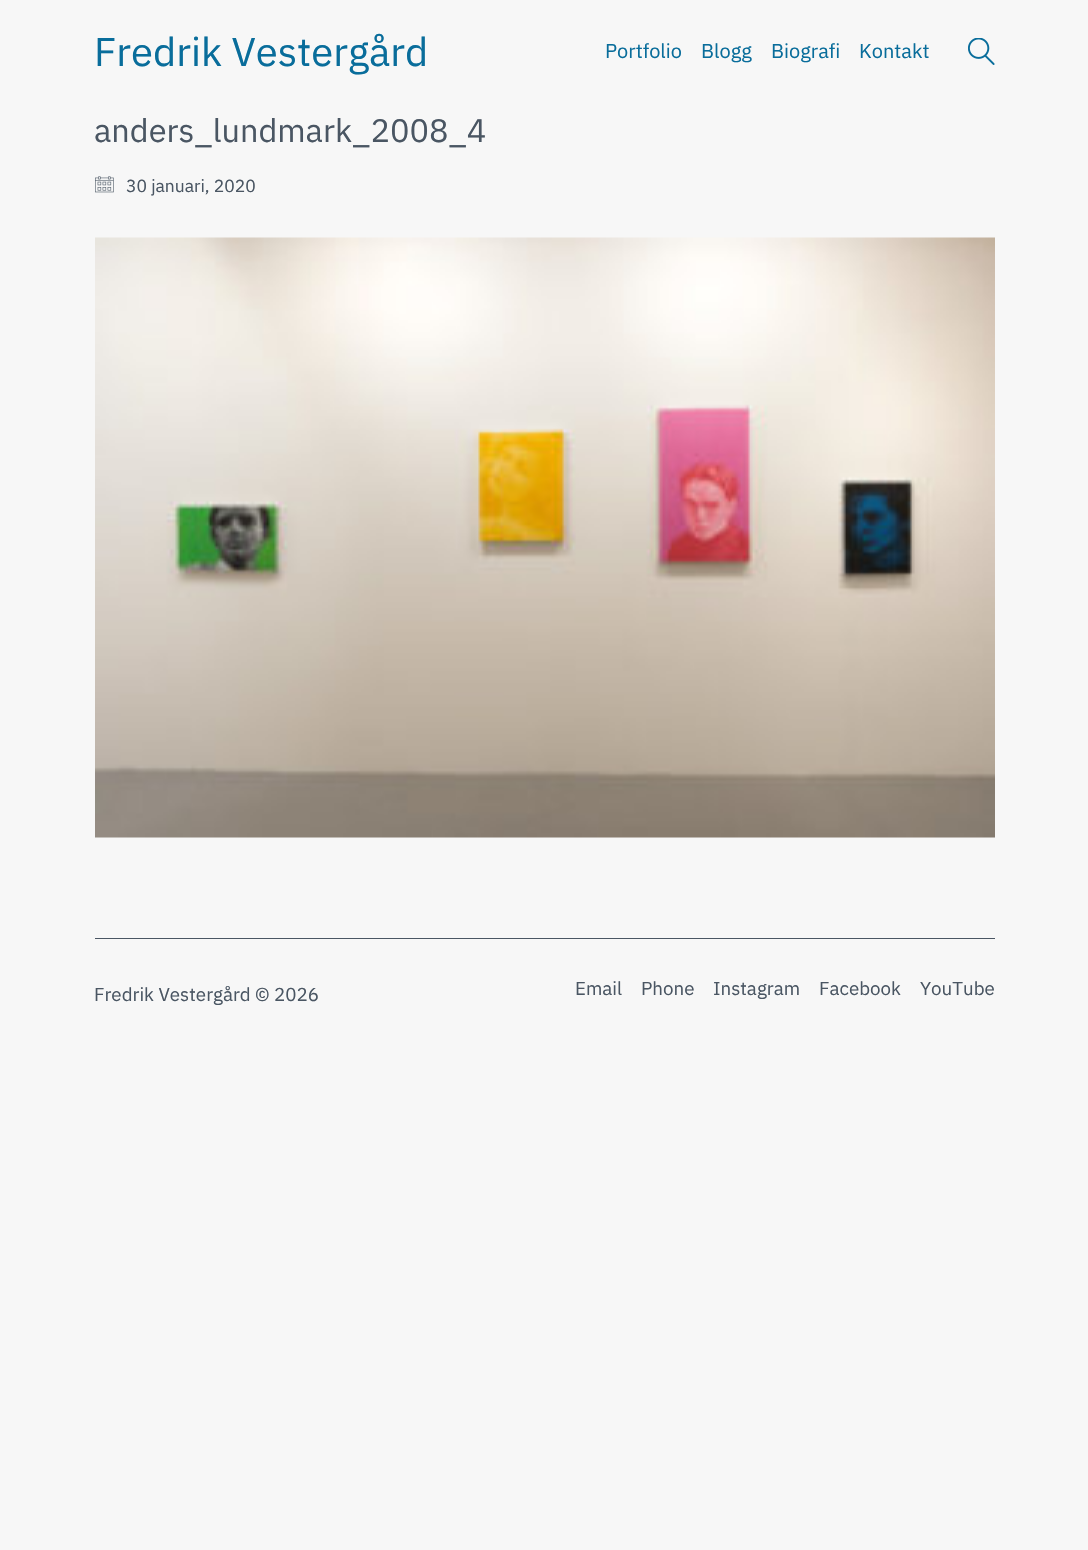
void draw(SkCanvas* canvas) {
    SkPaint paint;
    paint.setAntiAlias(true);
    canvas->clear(0xFFF7F7F7);
    SkFont font1(fontMgr->matchFamilyStyle("IBM Plex Sans", SkFontStyle::Normal()), 40);
    font1.setSubpixel(true);
    paint.setColor(0xFF096D9B);
    canvas->drawString("Fredrik Vestergård", 94, 66, font1, paint);
    SkFont font2(fontMgr->matchFamilyStyle("IBM Plex Sans", SkFontStyle::Normal()), 20);
    font2.setSubpixel(true);
    canvas->drawString("Portfolio", 605, 58, font2, paint);
    canvas->drawString("Blogg", 701, 58, font2, paint);
    canvas->drawString("Biografi", 771, 58, font2, paint);
    canvas->drawString("Kontakt", 859, 58, font2, paint);
    canvas->drawImageRect(SkImages::DeferredFromEncodedData(SkData::MakeFromFileName("img1.png")), SkRect::MakeXYWH(968, 38, 27, 27), SkSamplingOptions());
    SkFont font3(fontMgr->matchFamilyStyle("IBM Plex Sans", SkFontStyle::Normal()), 32.5f);
    font3.setSubpixel(true);
    paint.setColor(0xFF4A5663);
    canvas->drawString("anders_lundmark_2008_4", 94, 142, font3, paint);
    canvas->drawImageRect(SkImages::DeferredFromEncodedData(SkData::MakeFromFileName("img2.png")), SkRect::MakeXYWH(95, 176, 19, 17), SkSamplingOptions());
    SkFont font4(fontMgr->matchFamilyStyle("IBM Plex Sans", SkFontStyle::Normal()), 17.5f);
    font4.setSubpixel(true);
    canvas->drawString("30 januari, 2020", 126, 192, font4, paint);
    canvas->drawImageRect(SkImages::DeferredFromEncodedData(SkData::MakeFromFileName("img3.png")), SkRect::MakeXYWH(95, 237, 900, 601), SkSamplingOptions());
    canvas->drawRect(SkRect::MakeXYWH(95, 938, 900, 1), paint);
    SkFont font5(fontMgr->matchFamilyStyle("IBM Plex Sans", SkFontStyle::Normal()), 18.75f);
    font5.setSubpixel(true);
    canvas->drawString("Fredrik Vestergård © 2026", 94, 1001, font5, paint);
    canvas->drawString("Email", 575, 995, font5, paint);
    canvas->drawString("Phone", 641, 995, font5, paint);
    canvas->drawString("Instagram", 713, 995, font5, paint);
    canvas->drawString("Facebook", 819, 995, font5, paint);
    canvas->drawString("YouTube", 920, 995, font5, paint);
}
